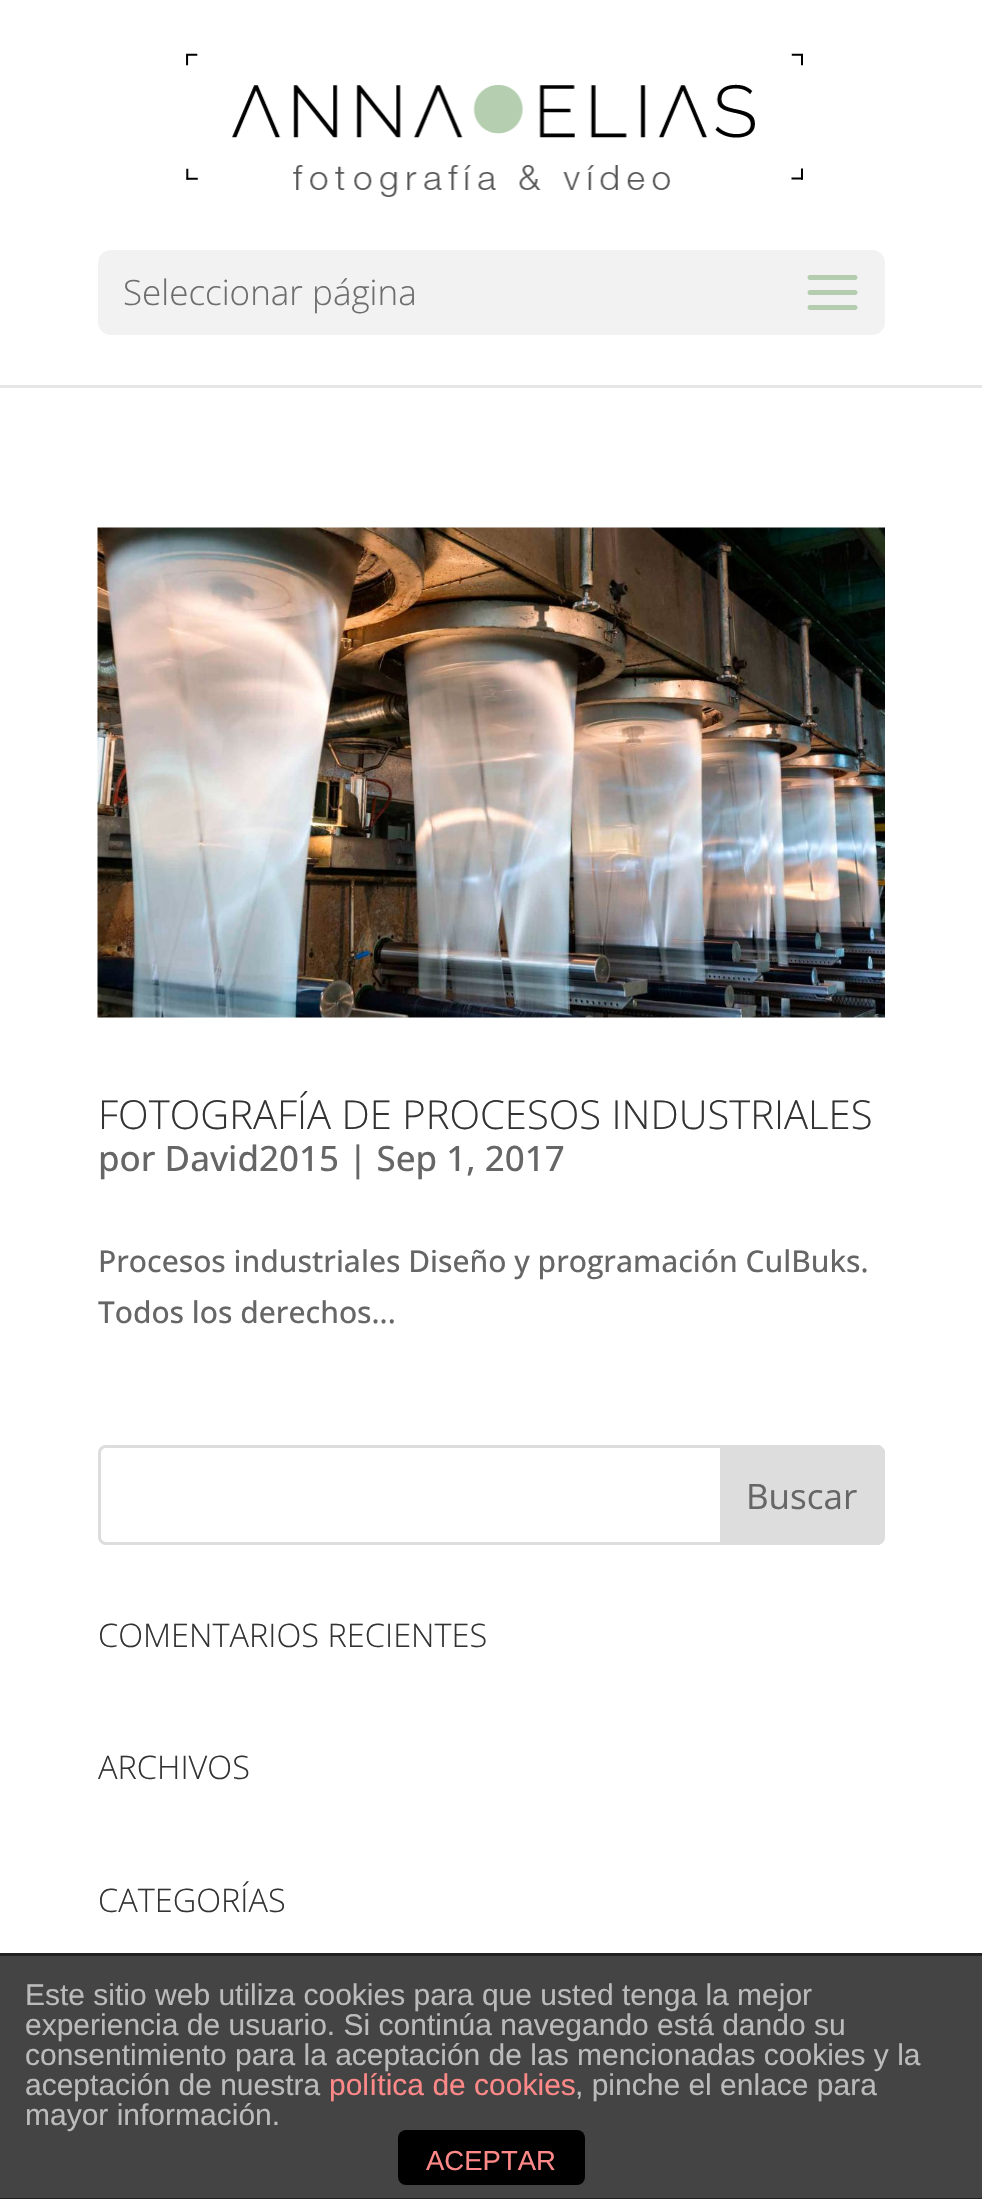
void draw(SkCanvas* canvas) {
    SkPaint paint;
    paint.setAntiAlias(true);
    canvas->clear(0xFFFFFFFF);
    paint.setColor(0xFFE6E6E6);
    canvas->drawPath(SkPathBuilder().moveTo(0, 385).lineTo(0, 388).lineTo(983, 388).lineTo(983, 3).lineTo(982, 3).lineTo(982, 385).close().detach(), paint);
    canvas->drawImageRect(SkImages::DeferredFromEncodedData(SkData::MakeFromFileName("img1.png")), SkRect::MakeXYWH(186, 53, 617, 144), SkSamplingOptions());
    paint.setColor(0xFFF2F2F2);
    canvas->drawRoundRect(SkRect::MakeXYWH(98, 250, 787, 85), 13, 13, paint);
    SkFont font1(fontMgr->matchFamilyStyle("Open Sans", SkFontStyle(300, SkFontStyle::kNormal_Width, SkFontStyle::kUpright_Slant)), 35);
    font1.setSubpixel(true);
    paint.setColor(0xFF6D6D6D);
    canvas->drawString("Seleccionar página", 123, 305, font1, paint);
    canvas->drawImageRect(SkImages::DeferredFromEncodedData(SkData::MakeFromFileName("img2.png")), SkRect::MakeXYWH(807, 275, 51, 35), SkSamplingOptions());
    canvas->drawImageRect(SkImages::DeferredFromEncodedData(SkData::MakeFromFileName("img3.png")), SkRect::MakeXYWH(97, 527, 788, 491), SkSamplingOptions());
    SkFont font2(fontMgr->matchFamilyStyle("Open Sans", SkFontStyle(300, SkFontStyle::kNormal_Width, SkFontStyle::kUpright_Slant)), 40);
    font2.setSubpixel(true);
    paint.setColor(0xFF333333);
    canvas->drawString("FOTOGRAFÍA DE PROCESOS INDUSTRIALES", 98, 1129, font2, paint);
    SkFont font3(fontMgr->matchFamilyStyle("Open Sans", SkFontStyle(500, SkFontStyle::kNormal_Width, SkFontStyle::kUpright_Slant)), 35);
    font3.setSubpixel(true);
    paint.setColor(0xFF666666);
    canvas->drawString("por David2015 | Sep 1, 2017", 98, 1171, font3, paint);
    SkFont font4(fontMgr->matchFamilyStyle("Open Sans", SkFontStyle(500, SkFontStyle::kNormal_Width, SkFontStyle::kUpright_Slant)), 30);
    font4.setSubpixel(true);
    canvas->drawString("Procesos industriales Diseño y programación CulBuks.", 98, 1272, font4, paint);
    canvas->drawString("Todos los derechos...", 98, 1323, font4, paint);
    paint.setStyle(SkPaint::kStroke_Style);
    paint.setStrokeWidth(3);
    paint.setColor(0xFFDDDDDD);
    canvas->drawRoundRect(SkRect::MakeXYWH(99.5f, 1446.5f, 784, 97), 6.5f, 6.5f, paint);
    paint.setStyle(SkPaint::kFill_Style);
    canvas->drawPath(SkPathBuilder().moveTo(721.5f, 1446.5f).lineTo(877, 1446.5f).cubicTo(880.5f, 1446.5f, 883.5f, 1449.5f, 883.5f, 1453).lineTo(883.5f, 1537).cubicTo(883.5f, 1540.5f, 880.5f, 1543.5f, 877, 1543.5f).lineTo(721.5f, 1543.5f).close().detach(), paint);
    paint.setStyle(SkPaint::kStroke_Style);
    canvas->drawPath(SkPathBuilder().moveTo(721.5f, 1446.5f).lineTo(877, 1446.5f).cubicTo(880.5f, 1446.5f, 883.5f, 1449.5f, 883.5f, 1453).lineTo(883.5f, 1537).cubicTo(883.5f, 1540.5f, 880.5f, 1543.5f, 877, 1543.5f).lineTo(721.5f, 1543.5f).close().detach(), paint);
    SkFont font5(fontMgr->matchFamilyStyle("Open Sans", SkFontStyle::Normal()), 35);
    font5.setSubpixel(true);
    paint.setStyle(SkPaint::kFill_Style);
    paint.setColor(0xFF666666);
    canvas->drawString("Buscar", 746, 1509, font5, paint);
    SkFont font6(fontMgr->matchFamilyStyle("Open Sans", SkFontStyle(300, SkFontStyle::kNormal_Width, SkFontStyle::kUpright_Slant)), 32.5f);
    font6.setSubpixel(true);
    paint.setColor(0xFF333333);
    canvas->drawString("COMENTARIOS RECIENTES", 98, 1647, font6, paint);
    canvas->drawString("ARCHIVOS", 98, 1779, font6, paint);
    canvas->drawString("CATEGORÍAS", 98, 1912, font6, paint);
    paint.setColor(0xFF444444);
    canvas->drawRect(SkRect::MakeXYWH(0, 1956, 982, 242), paint);
    paint.setColor(0xFF222222);
    canvas->drawRect(SkRect::MakeXYWH(0, 1953, 982, 3), paint);
    canvas->drawRect(SkRect::MakeXYWH(0, 2198, 982, 1), paint);
    SkFont font7(fontMgr->matchFamilyStyle("Liberation Sans", SkFontStyle::Normal()), 30);
    font7.setSubpixel(true);
    paint.setColor(0xFFBBBBBB);
    canvas->drawString("Este sitio web utiliza cookies para que usted tenga la mejor", 25, 2005, font7, paint);
    canvas->drawString("experiencia de usuario. Si continúa navegando está dando su", 25, 2035, font7, paint);
    canvas->drawString("consentimiento para la aceptación de las mencionadas cookies y la", 25, 2065, font7, paint);
    canvas->drawString("aceptación de nuestra", 25, 2095, font7, paint);
    paint.setColor(0xFFFF8888);
    canvas->drawString("política de cookies", 329, 2095, font7, paint);
    paint.setColor(0xFFBBBBBB);
    canvas->drawString(", pinche el enlace para", 575, 2095, font7, paint);
    canvas->drawString("mayor información.", 25, 2125, font7, paint);
    paint.setColor(0xFF000000);
    canvas->drawRoundRect(SkRect::MakeXYWH(398, 2130, 187, 55), 8, 8, paint);
    SkFont font8(fontMgr->matchFamilyStyle("Liberation Sans", SkFontStyle::Normal()), 27.5f);
    font8.setSubpixel(true);
    paint.setColor(0xFFFF8888);
    canvas->drawString("ACEPTAR", 426, 2170, font8, paint);
}
